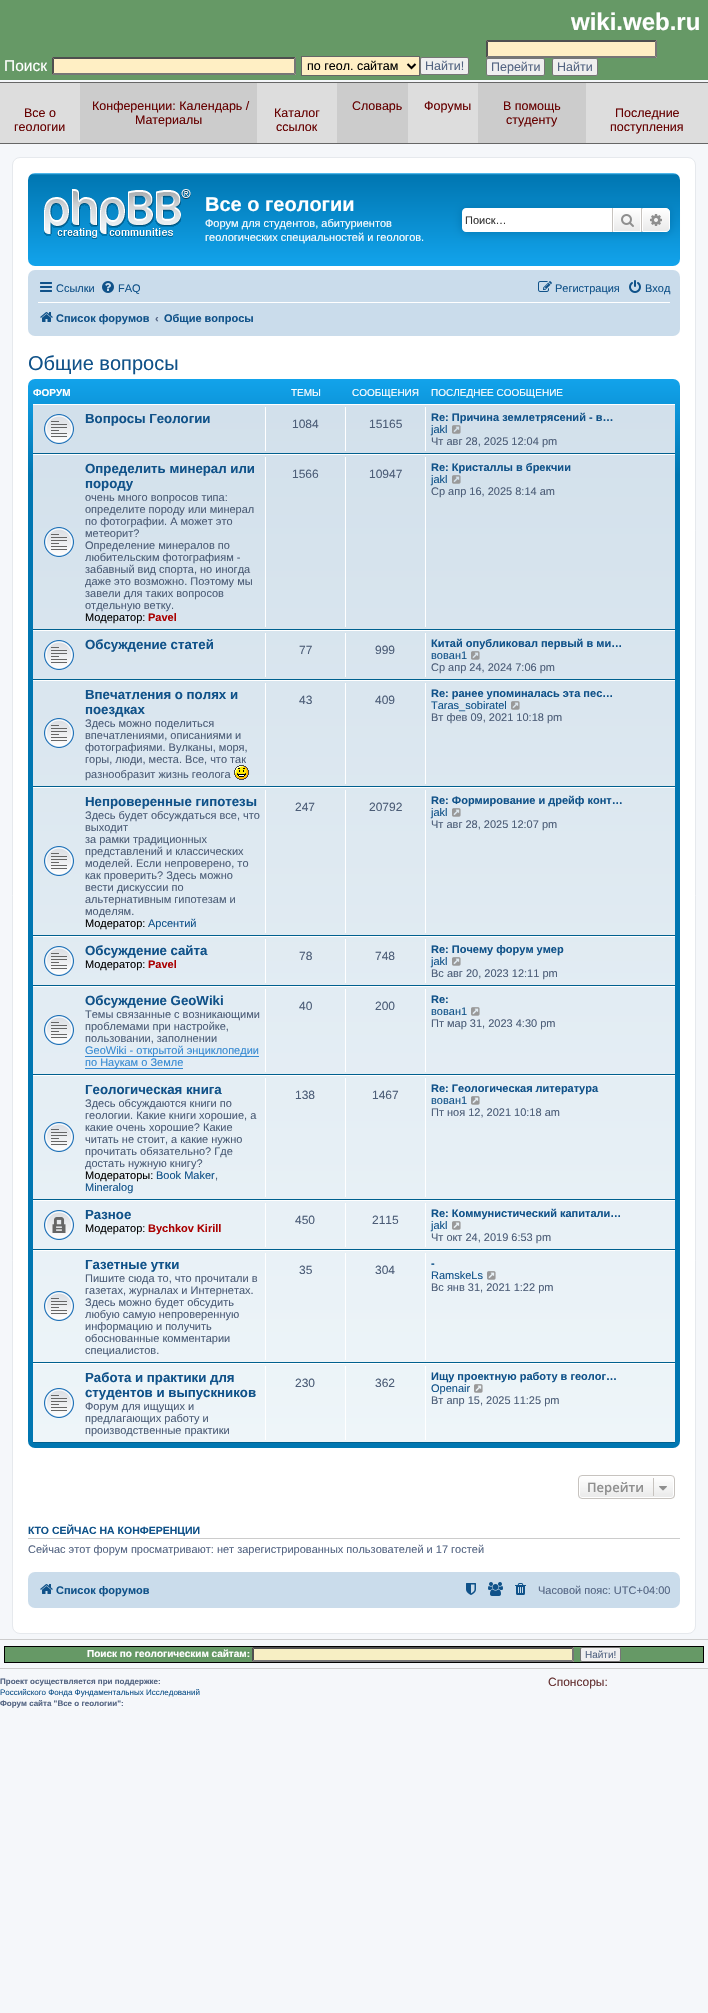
void draw(SkCanvas* canvas) {
    SkPaint paint;
    paint.setAntiAlias(true);
    canvas->clear(0xFFF5F7FA);
    paint.setColor(0xFF669966);
    canvas->drawRect(SkRect::MakeXYWH(0, 0, 708, 80), paint);
    SkFont font1(fontMgr->matchFamilyStyle("Liberation Sans", SkFontStyle::Bold()), 24);
    font1.setSubpixel(true);
    paint.setColor(0xFFFFFFFF);
    canvas->drawString("wiki.web.ru", 571, 30, font1, paint);
    SkFont font2(fontMgr->matchFamilyStyle("Liberation Sans", SkFontStyle::Normal()), 15.5f);
    font2.setSubpixel(true);
    canvas->drawString("Поиск", 4, 71, font2, paint);
    paint.setColor(0xFFFFEFC4);
    canvas->drawRect(SkRect::MakeXYWH(52, 57, 244, 18), paint);
    paint.setColor(0xFF4F4F4F);
    canvas->drawPath(SkPathBuilder().moveTo(52, 57).lineTo(296, 57).lineTo(294, 59).lineTo(54, 59).close().detach(), paint);
    paint.setColor(0xFF767676);
    canvas->drawPath(SkPathBuilder().moveTo(296, 57).lineTo(296, 75).lineTo(294, 73).lineTo(294, 59).close().detach(), paint);
    canvas->drawPath(SkPathBuilder().moveTo(296, 75).lineTo(52, 75).lineTo(54, 73).lineTo(294, 73).close().detach(), paint);
    paint.setColor(0xFF4F4F4F);
    canvas->drawPath(SkPathBuilder().moveTo(52, 75).lineTo(52, 57).lineTo(54, 59).lineTo(54, 73).close().detach(), paint);
    paint.setColor(0xFFFFEFC4);
    canvas->drawRect(SkRect::MakeXYWH(301.5f, 56.5f, 118, 19), paint);
    paint.setStyle(SkPaint::kStroke_Style);
    paint.setStrokeWidth(1);
    paint.setColor(0xFF666666);
    canvas->drawRect(SkRect::MakeXYWH(301.5f, 56.5f, 118, 19), paint);
    paint.setStrokeWidth(2);
    paint.setColor(0xFF000000);
    canvas->drawPath(SkPathBuilder().moveTo(407.5f, 64).lineTo(411.5f, 68).lineTo(415.5f, 64).detach(), paint);
    SkFont font3(fontMgr->matchFamilyStyle("Liberation Sans", SkFontStyle::Normal()), 12.5f);
    font3.setSubpixel(true);
    paint.setStyle(SkPaint::kFill_Style);
    canvas->drawString("по геол. сайтам", 307, 70, font3, paint);
    paint.setColor(0xFFEFEFEF);
    canvas->drawRoundRect(SkRect::MakeXYWH(420.5f, 57.5f, 48, 17), 1.5f, 1.5f, paint);
    paint.setStyle(SkPaint::kStroke_Style);
    paint.setStrokeWidth(1);
    paint.setColor(0xFF767676);
    canvas->drawRoundRect(SkRect::MakeXYWH(420.5f, 57.5f, 48, 17), 1.5f, 1.5f, paint);
    paint.setStyle(SkPaint::kFill_Style);
    paint.setColor(0xFF536482);
    canvas->drawString("Найти!", 425, 70, font3, paint);
    paint.setColor(0xFFFFEFC4);
    canvas->drawRect(SkRect::MakeXYWH(486, 40, 171, 18), paint);
    paint.setColor(0xFF4F4F4F);
    canvas->drawPath(SkPathBuilder().moveTo(486, 40).lineTo(657, 40).lineTo(655, 42).lineTo(488, 42).close().detach(), paint);
    paint.setColor(0xFF767676);
    canvas->drawPath(SkPathBuilder().moveTo(657, 40).lineTo(657, 58).lineTo(655, 56).lineTo(655, 42).close().detach(), paint);
    canvas->drawPath(SkPathBuilder().moveTo(657, 58).lineTo(486, 58).lineTo(488, 56).lineTo(655, 56).close().detach(), paint);
    paint.setColor(0xFF4F4F4F);
    canvas->drawPath(SkPathBuilder().moveTo(486, 58).lineTo(486, 40).lineTo(488, 42).lineTo(488, 56).close().detach(), paint);
    paint.setColor(0xFFEFEFEF);
    canvas->drawRoundRect(SkRect::MakeXYWH(486.5f, 58.5f, 58, 17), 1.5f, 1.5f, paint);
    paint.setStyle(SkPaint::kStroke_Style);
    paint.setColor(0xFF767676);
    canvas->drawRoundRect(SkRect::MakeXYWH(486.5f, 58.5f, 58, 17), 1.5f, 1.5f, paint);
    paint.setStyle(SkPaint::kFill_Style);
    paint.setColor(0xFF536482);
    canvas->drawString("Перейти", 491, 71, font3, paint);
    paint.setColor(0xFFEFEFEF);
    canvas->drawRoundRect(SkRect::MakeXYWH(552.5f, 58.5f, 45, 17), 1.5f, 1.5f, paint);
    paint.setStyle(SkPaint::kStroke_Style);
    paint.setColor(0xFF767676);
    canvas->drawRoundRect(SkRect::MakeXYWH(552.5f, 58.5f, 45, 17), 1.5f, 1.5f, paint);
    paint.setStyle(SkPaint::kFill_Style);
    paint.setColor(0xFF536482);
    canvas->drawString("Найти", 557, 71, font3, paint);
    paint.setColor(0xFFCCCCCC);
    canvas->drawRect(SkRect::MakeXYWH(80, 83, 506, 60), paint);
    paint.setColor(0xFF666666);
    canvas->drawRect(SkRect::MakeXYWH(0, 82, 708, 1), paint);
    canvas->drawRect(SkRect::MakeXYWH(0, 143, 708, 1), paint);
    paint.setColor(0xFFDDDDDD);
    canvas->drawRect(SkRect::MakeXYWH(0, 83, 80, 60), paint);
    paint.setColor(0xFF660000);
    canvas->drawString("Все о", 24, 117, font3, paint);
    canvas->drawString("геологии", 14, 131, font3, paint);
    canvas->drawString("Конференции: Календарь /", 92, 110, font3, paint);
    canvas->drawString("Материалы", 135, 124, font3, paint);
    paint.setColor(0xFFDDDDDD);
    canvas->drawRect(SkRect::MakeXYWH(257, 83, 80, 60), paint);
    paint.setColor(0xFF660000);
    canvas->drawString("Каталог", 274, 117, font3, paint);
    canvas->drawString("ссылок", 276, 131, font3, paint);
    canvas->drawString("Словарь", 352, 110, font3, paint);
    paint.setColor(0xFFDDDDDD);
    canvas->drawRect(SkRect::MakeXYWH(408, 83, 70, 60), paint);
    paint.setColor(0xFF660000);
    canvas->drawString("Форумы", 424, 110, font3, paint);
    canvas->drawString("В помощь", 503, 110, font3, paint);
    canvas->drawString("студенту", 506, 124, font3, paint);
    paint.setColor(0xFFDDDDDD);
    canvas->drawRect(SkRect::MakeXYWH(586, 83, 122, 60), paint);
    paint.setColor(0xFF660000);
    canvas->drawString("Последние", 615, 117, font3, paint);
    canvas->drawString("поступления", 610, 131, font3, paint);
    paint.setColor(0xFFFFFFFF);
    canvas->drawRoundRect(SkRect::MakeXYWH(12.5f, 157.5f, 683, 1476), 7.5f, 7.5f, paint);
    paint.setStyle(SkPaint::kStroke_Style);
    paint.setColor(0xFFE6E9ED);
    canvas->drawRoundRect(SkRect::MakeXYWH(12.5f, 157.5f, 683, 1476), 7.5f, 7.5f, paint);
    paint.setStyle(SkPaint::kFill_Style);
    {
        const SkColor colors[] = {0xFF6ACEFF, 0xFF0076B1, 0xFF12A3EB, 0xFF12A3EB};
        const float stops[] = {0, 0.02f, 0.99f, 1};
        const SkPoint ends[] = {{354, 173}, {354, 266}};
        paint.setShader(SkGradientShader::MakeLinear(ends, colors, stops, 4, SkTileMode::kClamp));
        paint.setAlpha(255);
    }
    canvas->drawRoundRect(SkRect::MakeXYWH(28, 173, 652, 93), 7, 7, paint);
    canvas->drawImageRect(SkImages::DeferredFromEncodedData(SkData::MakeFromFileName("img1.png")), SkRect::MakeXYWH(44, 189, 147, 50), SkSamplingOptions());
    SkFont font4(fontMgr->matchFamilyStyle("Liberation Sans", SkFontStyle::Bold()), 20);
    font4.setSubpixel(true);
    paint.setShader(nullptr);
    paint.setColor(0xFFFFFFFF);
    canvas->drawString("Все о геологии", 205, 211, font4, paint);
    SkFont font5(fontMgr->matchFamilyStyle("Liberation Sans", SkFontStyle::Normal()), 11);
    font5.setSubpixel(true);
    canvas->drawString("Форум для студентов, абитуриентов", 205, 227, font5, paint);
    canvas->drawString("геологических специальностей и геологов.", 205, 241, font5, paint);
    paint.setColor(0xFF0075B0);
    paint.setMaskFilter(SkMaskFilter::MakeBlur(kNormal_SkBlurStyle, 5));
    canvas->drawRoundRect(SkRect::MakeXYWH(462, 208, 208, 24), 4, 4, paint);
    paint.setMaskFilter(nullptr);
    paint.setColor(0xFFFFFFFF);
    canvas->drawPath(SkPathBuilder().moveTo(466, 208).lineTo(612, 208).lineTo(612, 232).lineTo(466, 232).cubicTo(464, 232, 462, 230, 462, 228).lineTo(462, 212).cubicTo(462, 210, 464, 208, 466, 208).close().detach(), paint);
    paint.setColor(0xFF333333);
    canvas->drawString("Поиск…", 465, 224, font5, paint);
    {
        const SkColor colors[] = {0xFFFFFFFF, 0xFFE9E9E9};
        const float stops[] = {0, 1};
        const SkPoint ends[] = {{627, 208}, {627, 232}};
        paint.setShader(SkGradientShader::MakeLinear(ends, colors, stops, 2, SkTileMode::kClamp));
        paint.setAlpha(255);
    }
    canvas->drawRect(SkRect::MakeXYWH(614, 209, 26, 22), paint);
    paint.setStyle(SkPaint::kStroke_Style);
    paint.setShader(nullptr);
    paint.setColor(0xFFFFFFFF);
    canvas->drawRect(SkRect::MakeXYWH(613.5f, 208.5f, 27, 23), paint);
    paint.setStyle(SkPaint::kFill_Style);
    paint.setColor(0xFFC7C3BF);
    canvas->drawRect(SkRect::MakeXYWH(641, 208, 1, 24), paint);
    canvas->drawRect(SkRect::MakeXYWH(612, 208, 1, 24), paint);
    canvas->drawImageRect(SkImages::DeferredFromEncodedData(SkData::MakeFromFileName("img2.png")), SkRect::MakeXYWH(621, 214, 13, 13), SkSamplingOptions());
    {
        const SkColor colors[] = {0xFFFFFFFF, 0xFFE9E9E9};
        const float stops[] = {0, 1};
        const SkPoint ends[] = {{656, 208}, {656, 232}};
        paint.setShader(SkGradientShader::MakeLinear(ends, colors, stops, 2, SkTileMode::kClamp));
        paint.setAlpha(255);
    }
    canvas->drawPath(SkPathBuilder().moveTo(642.5f, 208.5f).lineTo(666, 208.5f).cubicTo(668, 208.5f, 669.5f, 210, 669.5f, 212).lineTo(669.5f, 228).cubicTo(669.5f, 230, 668, 231.5f, 666, 231.5f).lineTo(642.5f, 231.5f).close().detach(), paint);
    paint.setStyle(SkPaint::kStroke_Style);
    paint.setShader(nullptr);
    paint.setColor(0xFFFFFFFF);
    canvas->drawPath(SkPathBuilder().moveTo(642.5f, 208.5f).lineTo(666, 208.5f).cubicTo(668, 208.5f, 669.5f, 210, 669.5f, 212).lineTo(669.5f, 228).cubicTo(669.5f, 230, 668, 231.5f, 666, 231.5f).lineTo(642.5f, 231.5f).close().detach(), paint);
    canvas->drawImageRect(SkImages::DeferredFromEncodedData(SkData::MakeFromFileName("img3.png")), SkRect::MakeXYWH(650, 214, 12, 12), SkSamplingOptions());
    paint.setStyle(SkPaint::kFill_Style);
    paint.setColor(0xFFCADCEB);
    canvas->drawRoundRect(SkRect::MakeXYWH(28, 270, 652, 66), 7, 7, paint);
    canvas->drawImageRect(SkImages::DeferredFromEncodedData(SkData::MakeFromFileName("img4.png")), SkRect::MakeXYWH(40, 282, 12, 10), SkSamplingOptions());
    paint.setColor(0xFF105289);
    canvas->drawString("Ссылки", 56, 292, font5, paint);
    canvas->drawImageRect(SkImages::DeferredFromEncodedData(SkData::MakeFromFileName("img5.png")), SkRect::MakeXYWH(102, 281, 12, 12), SkSamplingOptions());
    canvas->drawString("FAQ", 118, 292, font5, paint);
    canvas->drawImageRect(SkImages::DeferredFromEncodedData(SkData::MakeFromFileName("img6.png")), SkRect::MakeXYWH(538, 281, 14, 11), SkSamplingOptions());
    canvas->drawString("Регистрация", 555, 292, font5, paint);
    canvas->drawImageRect(SkImages::DeferredFromEncodedData(SkData::MakeFromFileName("img7.png")), SkRect::MakeXYWH(629, 280, 12, 13), SkSamplingOptions());
    canvas->drawString("Вход", 645, 292, font5, paint);
    paint.setColor(0xFFFFFFFF);
    canvas->drawRect(SkRect::MakeXYWH(38, 302, 632, 1), paint);
    canvas->drawImageRect(SkImages::DeferredFromEncodedData(SkData::MakeFromFileName("img8.png")), SkRect::MakeXYWH(40, 312, 13, 10), SkSamplingOptions());
    SkFont font6(fontMgr->matchFamilyStyle("Liberation Sans", SkFontStyle::Bold()), 11);
    font6.setSubpixel(true);
    paint.setColor(0xFF105289);
    canvas->drawString("Список форумов", 56, 322, font6, paint);
    paint.setColor(0xFF536482);
    canvas->drawString("‹", 155, 322, font6, paint);
    paint.setColor(0xFF105289);
    canvas->drawString("Общие вопросы", 164, 322, font6, paint);
    SkFont font7(fontMgr->matchFamilyStyle("Liberation Sans", SkFontStyle::Normal()), 20);
    font7.setSubpixel(true);
    canvas->drawString("Общие вопросы", 28, 370, font7, paint);
    {
        const SkColor colors[] = {0xFF6ACEFF, 0xFF12A3EB, 0xFF0076B1, 0xFF0076B1};
        const float stops[] = {0, 0, 0.09f, 1};
        const SkPoint ends[] = {{354, 379}, {354, 1448}};
        paint.setShader(SkGradientShader::MakeLinear(ends, colors, stops, 4, SkTileMode::kClamp));
        paint.setAlpha(255);
    }
    canvas->drawRoundRect(SkRect::MakeXYWH(28, 379, 652, 1069), 7, 7, paint);
    SkFont font8(fontMgr->matchFamilyStyle("Liberation Sans", SkFontStyle::Bold()), 10);
    font8.setSubpixel(true);
    paint.setShader(nullptr);
    paint.setColor(0xFFFFFFFF);
    canvas->drawString("ФОРУМ", 33, 396, font8, paint);
    SkFont font9(fontMgr->matchFamilyStyle("Liberation Sans", SkFontStyle::Normal()), 10);
    font9.setSubpixel(true);
    canvas->drawString("ТЕМЫ", 291, 396, font9, paint);
    canvas->drawString("СООБЩЕНИЯ", 352, 396, font9, paint);
    canvas->drawString("ПОСЛЕДНЕЕ СООБЩЕНИЕ", 431, 396, font9, paint);
    {
        const SkColor colors[] = {0xFFD2E0EB, 0xFFEEF5F9};
        const float stops[] = {0, 1};
        const SkPoint ends[] = {{354, 404}, {354, 1443}};
        paint.setShader(SkGradientShader::MakeLinear(ends, colors, stops, 2, SkTileMode::kClamp));
        paint.setAlpha(255);
    }
    canvas->drawRect(SkRect::MakeXYWH(33, 405, 642, 1037), paint);
    paint.setShader(nullptr);
    paint.setColor(0xFFFFFFFF);
    canvas->drawRect(SkRect::MakeXYWH(33, 404, 642, 1), paint);
    paint.setColor(0xFF00608F);
    canvas->drawRect(SkRect::MakeXYWH(33, 453, 642, 1), paint);
    canvas->drawImageRect(SkImages::DeferredFromEncodedData(SkData::MakeFromFileName("img9.png")), SkRect::MakeXYWH(44, 414, 30, 30), SkSamplingOptions());
    SkFont font10(fontMgr->matchFamilyStyle("Liberation Sans", SkFontStyle::Bold()), 13.25f);
    font10.setSubpixel(true);
    paint.setColor(0xFF105289);
    canvas->drawString("Вопросы Геологии", 85, 423, font10, paint);
    paint.setColor(0xFFFFFFFF);
    canvas->drawRect(SkRect::MakeXYWH(265, 407, 1, 44), paint);
    SkFont font11(fontMgr->matchFamilyStyle("Liberation Sans", SkFontStyle::Normal()), 12);
    font11.setSubpixel(true);
    paint.setColor(0xFF4C5D77);
    canvas->drawString("1084", 292, 428, font11, paint);
    paint.setColor(0xFFFFFFFF);
    canvas->drawRect(SkRect::MakeXYWH(345, 407, 1, 44), paint);
    paint.setColor(0xFF4C5D77);
    canvas->drawString("15165", 369, 428, font11, paint);
    paint.setColor(0xFFFFFFFF);
    canvas->drawRect(SkRect::MakeXYWH(425, 407, 1, 44), paint);
    paint.setColor(0xFF105289);
    canvas->drawString("Re: Причина землетрясений - в…", 431, 421, font6, paint);
    canvas->drawString("jakl", 431, 433, font5, paint);
    canvas->drawImageRect(SkImages::DeferredFromEncodedData(SkData::MakeFromFileName("img10.png")), SkRect::MakeXYWH(452, 425, 9, 9), SkSamplingOptions());
    paint.setColor(0xFF4C5D77);
    canvas->drawString("Чт авг 28, 2025 12:04 pm", 431, 445, font5, paint);
    paint.setColor(0xFFFFFFFF);
    canvas->drawRect(SkRect::MakeXYWH(33, 454, 642, 1), paint);
    paint.setColor(0xFF00608F);
    canvas->drawRect(SkRect::MakeXYWH(33, 629, 642, 1), paint);
    canvas->drawImageRect(SkImages::DeferredFromEncodedData(SkData::MakeFromFileName("img11.png")), SkRect::MakeXYWH(44, 527, 30, 30), SkSamplingOptions());
    paint.setColor(0xFF105289);
    canvas->drawString("Определить минерал или", 85, 473, font10, paint);
    canvas->drawString("породу", 85, 488, font10, paint);
    paint.setColor(0xFF4C5D77);
    canvas->drawString("очень много вопросов типа:", 85, 501, font5, paint);
    canvas->drawString("определите породу или минерал", 85, 513, font5, paint);
    canvas->drawString("по фотографии. А может это", 85, 525, font5, paint);
    canvas->drawString("метеорит?", 85, 537, font5, paint);
    canvas->drawString("Определение минералов по", 85, 549, font5, paint);
    canvas->drawString("любительским фотографиям -", 85, 561, font5, paint);
    canvas->drawString("забавный вид спорта, но иногда", 85, 573, font5, paint);
    canvas->drawString("даже это возможно. Поэтому мы", 85, 585, font5, paint);
    canvas->drawString("завели для таких вопросов", 85, 597, font5, paint);
    canvas->drawString("отдельную ветку.", 85, 609, font5, paint);
    paint.setColor(0xFF000000);
    canvas->drawString("Модератор:", 85, 621, font5, paint);
    paint.setColor(0xFFAA0000);
    canvas->drawString("Pavel", 148, 621, font6, paint);
    paint.setColor(0xFFFFFFFF);
    canvas->drawRect(SkRect::MakeXYWH(265, 457, 1, 170), paint);
    paint.setColor(0xFF4C5D77);
    canvas->drawString("1566", 292, 478, font11, paint);
    paint.setColor(0xFFFFFFFF);
    canvas->drawRect(SkRect::MakeXYWH(345, 457, 1, 170), paint);
    paint.setColor(0xFF4C5D77);
    canvas->drawString("10947", 369, 478, font11, paint);
    paint.setColor(0xFFFFFFFF);
    canvas->drawRect(SkRect::MakeXYWH(425, 457, 1, 170), paint);
    paint.setColor(0xFF105289);
    canvas->drawString("Re: Кристаллы в брекчии", 431, 471, font6, paint);
    canvas->drawString("jakl", 431, 483, font5, paint);
    canvas->drawImageRect(SkImages::DeferredFromEncodedData(SkData::MakeFromFileName("img12.png")), SkRect::MakeXYWH(452, 475, 9, 9), SkSamplingOptions());
    paint.setColor(0xFF4C5D77);
    canvas->drawString("Ср апр 16, 2025 8:14 am", 431, 495, font5, paint);
    paint.setColor(0xFFFFFFFF);
    canvas->drawRect(SkRect::MakeXYWH(33, 630, 642, 1), paint);
    paint.setColor(0xFF00608F);
    canvas->drawRect(SkRect::MakeXYWH(33, 679, 642, 1), paint);
    canvas->drawImageRect(SkImages::DeferredFromEncodedData(SkData::MakeFromFileName("img13.png")), SkRect::MakeXYWH(44, 640, 30, 30), SkSamplingOptions());
    paint.setColor(0xFF105289);
    canvas->drawString("Обсуждение статей", 85, 649, font10, paint);
    paint.setColor(0xFFFFFFFF);
    canvas->drawRect(SkRect::MakeXYWH(265, 633, 1, 44), paint);
    paint.setColor(0xFF4C5D77);
    canvas->drawString("77", 299, 654, font11, paint);
    paint.setColor(0xFFFFFFFF);
    canvas->drawRect(SkRect::MakeXYWH(345, 633, 1, 44), paint);
    paint.setColor(0xFF4C5D77);
    canvas->drawString("999", 375, 654, font11, paint);
    paint.setColor(0xFFFFFFFF);
    canvas->drawRect(SkRect::MakeXYWH(425, 633, 1, 44), paint);
    paint.setColor(0xFF105289);
    canvas->drawString("Китай опубликовал первый в ми…", 431, 647, font6, paint);
    canvas->drawString("вован1", 431, 659, font5, paint);
    canvas->drawImageRect(SkImages::DeferredFromEncodedData(SkData::MakeFromFileName("img14.png")), SkRect::MakeXYWH(471, 651, 9, 9), SkSamplingOptions());
    paint.setColor(0xFF4C5D77);
    canvas->drawString("Ср апр 24, 2024 7:06 pm", 431, 671, font5, paint);
    paint.setColor(0xFFFFFFFF);
    canvas->drawRect(SkRect::MakeXYWH(33, 680, 642, 1), paint);
    paint.setColor(0xFF00608F);
    canvas->drawRect(SkRect::MakeXYWH(33, 786, 642, 1), paint);
    canvas->drawImageRect(SkImages::DeferredFromEncodedData(SkData::MakeFromFileName("img15.png")), SkRect::MakeXYWH(44, 718, 30, 30), SkSamplingOptions());
    paint.setColor(0xFF105289);
    canvas->drawString("Впечатления о полях и", 85, 699, font10, paint);
    canvas->drawString("поездках", 85, 714, font10, paint);
    paint.setColor(0xFF4C5D77);
    canvas->drawString("Здесь можно поделиться", 85, 727, font5, paint);
    canvas->drawString("впечатлениями, описаниями и", 85, 739, font5, paint);
    canvas->drawString("фотографиями. Вулканы, моря,", 85, 751, font5, paint);
    canvas->drawString("горы, люди, места. Все, что так", 85, 763, font5, paint);
    canvas->drawString("разнообразит жизнь геолога", 85, 778, font5, paint);
    canvas->drawImageRect(SkImages::DeferredFromEncodedData(SkData::MakeFromFileName("img16.png")), SkRect::MakeXYWH(234, 765, 15, 15), SkSamplingOptions());
    paint.setColor(0xFFFFFFFF);
    canvas->drawRect(SkRect::MakeXYWH(265, 683, 1, 101), paint);
    paint.setColor(0xFF4C5D77);
    canvas->drawString("43", 299, 704, font11, paint);
    paint.setColor(0xFFFFFFFF);
    canvas->drawRect(SkRect::MakeXYWH(345, 683, 1, 101), paint);
    paint.setColor(0xFF4C5D77);
    canvas->drawString("409", 375, 704, font11, paint);
    paint.setColor(0xFFFFFFFF);
    canvas->drawRect(SkRect::MakeXYWH(425, 683, 1, 101), paint);
    paint.setColor(0xFF105289);
    canvas->drawString("Re: ранее упоминалась эта пес…", 431, 697, font6, paint);
    canvas->drawString("Taras_sobiratel", 431, 709, font5, paint);
    canvas->drawImageRect(SkImages::DeferredFromEncodedData(SkData::MakeFromFileName("img17.png")), SkRect::MakeXYWH(511, 701, 9, 9), SkSamplingOptions());
    paint.setColor(0xFF4C5D77);
    canvas->drawString("Вт фев 09, 2021 10:18 pm", 431, 721, font5, paint);
    paint.setColor(0xFFFFFFFF);
    canvas->drawRect(SkRect::MakeXYWH(33, 787, 642, 1), paint);
    paint.setColor(0xFF00608F);
    canvas->drawRect(SkRect::MakeXYWH(33, 935, 642, 1), paint);
    canvas->drawImageRect(SkImages::DeferredFromEncodedData(SkData::MakeFromFileName("img18.png")), SkRect::MakeXYWH(44, 846, 30, 30), SkSamplingOptions());
    paint.setColor(0xFF105289);
    canvas->drawString("Непроверенные гипотезы", 85, 806, font10, paint);
    paint.setColor(0xFF4C5D77);
    canvas->drawString("Здесь будет обсуждаться все, что", 85, 819, font5, paint);
    canvas->drawString("выходит", 85, 831, font5, paint);
    canvas->drawString("за рамки традиционных", 85, 843, font5, paint);
    canvas->drawString("представлений и классических", 85, 855, font5, paint);
    canvas->drawString("моделей. Если непроверено, то", 85, 867, font5, paint);
    canvas->drawString("как проверить? Здесь можно", 85, 879, font5, paint);
    canvas->drawString("вести дискуссии по", 85, 891, font5, paint);
    canvas->drawString("альтернативным гипотезам и", 85, 903, font5, paint);
    canvas->drawString("моделям.", 85, 915, font5, paint);
    paint.setColor(0xFF000000);
    canvas->drawString("Модератор:", 85, 927, font5, paint);
    paint.setColor(0xFF105289);
    canvas->drawString("Арсентий", 148, 927, font5, paint);
    paint.setColor(0xFFFFFFFF);
    canvas->drawRect(SkRect::MakeXYWH(265, 790, 1, 143), paint);
    paint.setColor(0xFF4C5D77);
    canvas->drawString("247", 295, 811, font11, paint);
    paint.setColor(0xFFFFFFFF);
    canvas->drawRect(SkRect::MakeXYWH(345, 790, 1, 143), paint);
    paint.setColor(0xFF4C5D77);
    canvas->drawString("20792", 369, 811, font11, paint);
    paint.setColor(0xFFFFFFFF);
    canvas->drawRect(SkRect::MakeXYWH(425, 790, 1, 143), paint);
    paint.setColor(0xFF105289);
    canvas->drawString("Re: Формирование и дрейф конт…", 431, 804, font6, paint);
    canvas->drawString("jakl", 431, 816, font5, paint);
    canvas->drawImageRect(SkImages::DeferredFromEncodedData(SkData::MakeFromFileName("img19.png")), SkRect::MakeXYWH(452, 808, 9, 9), SkSamplingOptions());
    paint.setColor(0xFF4C5D77);
    canvas->drawString("Чт авг 28, 2025 12:07 pm", 431, 828, font5, paint);
    paint.setColor(0xFFFFFFFF);
    canvas->drawRect(SkRect::MakeXYWH(33, 936, 642, 1), paint);
    paint.setColor(0xFF00608F);
    canvas->drawRect(SkRect::MakeXYWH(33, 985, 642, 1), paint);
    canvas->drawImageRect(SkImages::DeferredFromEncodedData(SkData::MakeFromFileName("img20.png")), SkRect::MakeXYWH(44, 946, 30, 30), SkSamplingOptions());
    paint.setColor(0xFF105289);
    canvas->drawString("Обсуждение сайта", 85, 955, font10, paint);
    paint.setColor(0xFF000000);
    canvas->drawString("Модератор:", 85, 968, font5, paint);
    paint.setColor(0xFFAA0000);
    canvas->drawString("Pavel", 148, 968, font6, paint);
    paint.setColor(0xFFFFFFFF);
    canvas->drawRect(SkRect::MakeXYWH(265, 939, 1, 44), paint);
    paint.setColor(0xFF4C5D77);
    canvas->drawString("78", 299, 960, font11, paint);
    paint.setColor(0xFFFFFFFF);
    canvas->drawRect(SkRect::MakeXYWH(345, 939, 1, 44), paint);
    paint.setColor(0xFF4C5D77);
    canvas->drawString("748", 375, 960, font11, paint);
    paint.setColor(0xFFFFFFFF);
    canvas->drawRect(SkRect::MakeXYWH(425, 939, 1, 44), paint);
    paint.setColor(0xFF105289);
    canvas->drawString("Re: Почему форум умер", 431, 953, font6, paint);
    canvas->drawString("jakl", 431, 965, font5, paint);
    canvas->drawImageRect(SkImages::DeferredFromEncodedData(SkData::MakeFromFileName("img21.png")), SkRect::MakeXYWH(452, 957, 9, 9), SkSamplingOptions());
    paint.setColor(0xFF4C5D77);
    canvas->drawString("Вс авг 20, 2023 12:11 pm", 431, 977, font5, paint);
    paint.setColor(0xFFFFFFFF);
    canvas->drawRect(SkRect::MakeXYWH(33, 986, 642, 1), paint);
    paint.setColor(0xFF00608F);
    canvas->drawRect(SkRect::MakeXYWH(33, 1074, 642, 1), paint);
    canvas->drawImageRect(SkImages::DeferredFromEncodedData(SkData::MakeFromFileName("img22.png")), SkRect::MakeXYWH(44, 1015, 30, 30), SkSamplingOptions());
    paint.setColor(0xFF105289);
    canvas->drawString("Обсуждение GeoWiki", 85, 1005, font10, paint);
    paint.setColor(0xFF4C5D77);
    canvas->drawString("Темы связанные с возникающими", 85, 1018, font5, paint);
    canvas->drawString("проблемами при настройке,", 85, 1030, font5, paint);
    canvas->drawString("пользовании, заполнении", 85, 1042, font5, paint);
    paint.setColor(0xFF368AD2);
    canvas->drawRect(SkRect::MakeXYWH(85, 1056, 174, 1), paint);
    canvas->drawString("GeoWiki - открытой энциклопедии", 85, 1054, font5, paint);
    canvas->drawRect(SkRect::MakeXYWH(85, 1068, 98, 1), paint);
    canvas->drawString("по Наукам о Земле", 85, 1066, font5, paint);
    paint.setColor(0xFFFFFFFF);
    canvas->drawRect(SkRect::MakeXYWH(265, 989, 1, 83), paint);
    paint.setColor(0xFF4C5D77);
    canvas->drawString("40", 299, 1010, font11, paint);
    paint.setColor(0xFFFFFFFF);
    canvas->drawRect(SkRect::MakeXYWH(345, 989, 1, 83), paint);
    paint.setColor(0xFF4C5D77);
    canvas->drawString("200", 375, 1010, font11, paint);
    paint.setColor(0xFFFFFFFF);
    canvas->drawRect(SkRect::MakeXYWH(425, 989, 1, 83), paint);
    paint.setColor(0xFF105289);
    canvas->drawString("Re:", 431, 1003, font6, paint);
    canvas->drawString("вован1", 431, 1015, font5, paint);
    canvas->drawImageRect(SkImages::DeferredFromEncodedData(SkData::MakeFromFileName("img23.png")), SkRect::MakeXYWH(471, 1007, 9, 9), SkSamplingOptions());
    paint.setColor(0xFF4C5D77);
    canvas->drawString("Пт мар 31, 2023 4:30 pm", 431, 1027, font5, paint);
    paint.setColor(0xFFFFFFFF);
    canvas->drawRect(SkRect::MakeXYWH(33, 1075, 642, 1), paint);
    paint.setColor(0xFF00608F);
    canvas->drawRect(SkRect::MakeXYWH(33, 1199, 642, 1), paint);
    canvas->drawImageRect(SkImages::DeferredFromEncodedData(SkData::MakeFromFileName("img24.png")), SkRect::MakeXYWH(44, 1122, 30, 30), SkSamplingOptions());
    paint.setColor(0xFF105289);
    canvas->drawString("Геологическая книга", 85, 1094, font10, paint);
    paint.setColor(0xFF4C5D77);
    canvas->drawString("Здесь обсуждаются книги по", 85, 1107, font5, paint);
    canvas->drawString("геологии. Какие книги хорошие, а", 85, 1119, font5, paint);
    canvas->drawString("какие очень хорошие? Какие", 85, 1131, font5, paint);
    canvas->drawString("читать не стоит, а какие нужно", 85, 1143, font5, paint);
    canvas->drawString("прочитать обязательно? Где", 85, 1155, font5, paint);
    canvas->drawString("достать нужную книгу?", 85, 1167, font5, paint);
    paint.setColor(0xFF000000);
    canvas->drawString("Модераторы:", 85, 1179, font5, paint);
    paint.setColor(0xFF105289);
    canvas->drawString("Book Maker", 156, 1179, font5, paint);
    paint.setColor(0xFF4C5D77);
    canvas->drawString(",", 215, 1179, font5, paint);
    paint.setColor(0xFF105289);
    canvas->drawString("Mineralog", 85, 1191, font5, paint);
    paint.setColor(0xFFFFFFFF);
    canvas->drawRect(SkRect::MakeXYWH(265, 1078, 1, 119), paint);
    paint.setColor(0xFF4C5D77);
    canvas->drawString("138", 295, 1099, font11, paint);
    paint.setColor(0xFFFFFFFF);
    canvas->drawRect(SkRect::MakeXYWH(345, 1078, 1, 119), paint);
    paint.setColor(0xFF4C5D77);
    canvas->drawString("1467", 372, 1099, font11, paint);
    paint.setColor(0xFFFFFFFF);
    canvas->drawRect(SkRect::MakeXYWH(425, 1078, 1, 119), paint);
    paint.setColor(0xFF105289);
    canvas->drawString("Re: Геологическая литература", 431, 1092, font6, paint);
    canvas->drawString("вован1", 431, 1104, font5, paint);
    canvas->drawImageRect(SkImages::DeferredFromEncodedData(SkData::MakeFromFileName("img25.png")), SkRect::MakeXYWH(471, 1096, 9, 9), SkSamplingOptions());
    paint.setColor(0xFF4C5D77);
    canvas->drawString("Пт ноя 12, 2021 10:18 am", 431, 1116, font5, paint);
    paint.setColor(0xFFFFFFFF);
    canvas->drawRect(SkRect::MakeXYWH(33, 1200, 642, 1), paint);
    paint.setColor(0xFF00608F);
    canvas->drawRect(SkRect::MakeXYWH(33, 1249, 642, 1), paint);
    canvas->drawImageRect(SkImages::DeferredFromEncodedData(SkData::MakeFromFileName("img26.png")), SkRect::MakeXYWH(44, 1210, 30, 30), SkSamplingOptions());
    paint.setColor(0xFF105289);
    canvas->drawString("Разное", 85, 1219, font10, paint);
    paint.setColor(0xFF000000);
    canvas->drawString("Модератор:", 85, 1232, font5, paint);
    paint.setColor(0xFFAA0000);
    canvas->drawString("Bychkov Kirill", 148, 1232, font6, paint);
    paint.setColor(0xFFFFFFFF);
    canvas->drawRect(SkRect::MakeXYWH(265, 1203, 1, 44), paint);
    paint.setColor(0xFF4C5D77);
    canvas->drawString("450", 295, 1224, font11, paint);
    paint.setColor(0xFFFFFFFF);
    canvas->drawRect(SkRect::MakeXYWH(345, 1203, 1, 44), paint);
    paint.setColor(0xFF4C5D77);
    canvas->drawString("2115", 372, 1224, font11, paint);
    paint.setColor(0xFFFFFFFF);
    canvas->drawRect(SkRect::MakeXYWH(425, 1203, 1, 44), paint);
    paint.setColor(0xFF105289);
    canvas->drawString("Re: Коммунистический капитали…", 431, 1217, font6, paint);
    canvas->drawString("jakl", 431, 1229, font5, paint);
    canvas->drawImageRect(SkImages::DeferredFromEncodedData(SkData::MakeFromFileName("img27.png")), SkRect::MakeXYWH(452, 1221, 9, 9), SkSamplingOptions());
    paint.setColor(0xFF4C5D77);
    canvas->drawString("Чт окт 24, 2019 6:53 pm", 431, 1241, font5, paint);
    paint.setColor(0xFFFFFFFF);
    canvas->drawRect(SkRect::MakeXYWH(33, 1250, 642, 1), paint);
    paint.setColor(0xFF00608F);
    canvas->drawRect(SkRect::MakeXYWH(33, 1362, 642, 1), paint);
    canvas->drawImageRect(SkImages::DeferredFromEncodedData(SkData::MakeFromFileName("img28.png")), SkRect::MakeXYWH(44, 1291, 30, 30), SkSamplingOptions());
    paint.setColor(0xFF105289);
    canvas->drawString("Газетные утки", 85, 1269, font10, paint);
    paint.setColor(0xFF4C5D77);
    canvas->drawString("Пишите сюда то, что прочитали в", 85, 1282, font5, paint);
    canvas->drawString("газетах, журналах и Интернетах.", 85, 1294, font5, paint);
    canvas->drawString("Здесь можно будет обсудить", 85, 1306, font5, paint);
    canvas->drawString("любую самую непроверенную", 85, 1318, font5, paint);
    canvas->drawString("информацию и получить", 85, 1330, font5, paint);
    canvas->drawString("обоснованные комментарии", 85, 1342, font5, paint);
    canvas->drawString("специалистов.", 85, 1354, font5, paint);
    paint.setColor(0xFFFFFFFF);
    canvas->drawRect(SkRect::MakeXYWH(265, 1253, 1, 107), paint);
    paint.setColor(0xFF4C5D77);
    canvas->drawString("35", 299, 1274, font11, paint);
    paint.setColor(0xFFFFFFFF);
    canvas->drawRect(SkRect::MakeXYWH(345, 1253, 1, 107), paint);
    paint.setColor(0xFF4C5D77);
    canvas->drawString("304", 375, 1274, font11, paint);
    paint.setColor(0xFFFFFFFF);
    canvas->drawRect(SkRect::MakeXYWH(425, 1253, 1, 107), paint);
    paint.setColor(0xFF105289);
    canvas->drawString("-", 431, 1267, font6, paint);
    canvas->drawString("RamskeLs", 431, 1279, font5, paint);
    canvas->drawImageRect(SkImages::DeferredFromEncodedData(SkData::MakeFromFileName("img29.png")), SkRect::MakeXYWH(487, 1271, 9, 9), SkSamplingOptions());
    paint.setColor(0xFF4C5D77);
    canvas->drawString("Вс янв 31, 2021 1:22 pm", 431, 1291, font5, paint);
    paint.setColor(0xFFFFFFFF);
    canvas->drawRect(SkRect::MakeXYWH(33, 1363, 642, 1), paint);
    paint.setColor(0xFF00608F);
    canvas->drawRect(SkRect::MakeXYWH(33, 1442, 642, 1), paint);
    canvas->drawImageRect(SkImages::DeferredFromEncodedData(SkData::MakeFromFileName("img30.png")), SkRect::MakeXYWH(44, 1388, 30, 30), SkSamplingOptions());
    paint.setColor(0xFF105289);
    canvas->drawString("Работа и практики для", 85, 1382, font10, paint);
    canvas->drawString("студентов и выпускников", 85, 1397, font10, paint);
    paint.setColor(0xFF4C5D77);
    canvas->drawString("Форум для ищущих и", 85, 1410, font5, paint);
    canvas->drawString("предлагающих работу и", 85, 1422, font5, paint);
    canvas->drawString("производственные практики", 85, 1434, font5, paint);
    paint.setColor(0xFFFFFFFF);
    canvas->drawRect(SkRect::MakeXYWH(265, 1366, 1, 74), paint);
    paint.setColor(0xFF4C5D77);
    canvas->drawString("230", 295, 1387, font11, paint);
    paint.setColor(0xFFFFFFFF);
    canvas->drawRect(SkRect::MakeXYWH(345, 1366, 1, 74), paint);
    paint.setColor(0xFF4C5D77);
    canvas->drawString("362", 375, 1387, font11, paint);
    paint.setColor(0xFFFFFFFF);
    canvas->drawRect(SkRect::MakeXYWH(425, 1366, 1, 74), paint);
    paint.setColor(0xFF105289);
    canvas->drawString("Ищу проектную работу в геолог…", 431, 1380, font6, paint);
    canvas->drawString("Openair", 431, 1392, font5, paint);
    canvas->drawImageRect(SkImages::DeferredFromEncodedData(SkData::MakeFromFileName("img31.png")), SkRect::MakeXYWH(474, 1384, 9, 9), SkSamplingOptions());
    paint.setColor(0xFF4C5D77);
    canvas->drawString("Вт апр 15, 2025 11:25 pm", 431, 1404, font5, paint);
    canvas->save();
    canvas->clipPath(SkPathBuilder().moveTo(582, 1475).lineTo(671, 1475).cubicTo(673, 1475, 675, 1477, 675, 1479).lineTo(675, 1495).cubicTo(675, 1497, 673, 1499, 671, 1499).lineTo(582, 1499).cubicTo(580, 1499, 578, 1497, 578, 1495).lineTo(578, 1479).cubicTo(578, 1477, 580, 1475, 582, 1475).close().detach(), true);
    {
        const SkColor colors[] = {0xFFFFFFFF, 0xFFE9E9E9};
        const float stops[] = {0, 1};
        const SkPoint ends[] = {{627, 1476}, {627, 1498}};
        paint.setShader(SkGradientShader::MakeLinear(ends, colors, stops, 2, SkTileMode::kClamp));
        paint.setAlpha(255);
    }
    canvas->drawRect(SkRect::MakeXYWH(578, 1476, 97, 22), paint);
    canvas->restore();
    paint.setStyle(SkPaint::kStroke_Style);
    paint.setShader(nullptr);
    paint.setColor(0xFFFFFFFF);
    canvas->drawRoundRect(SkRect::MakeXYWH(579.5f, 1476.5f, 94, 21), 2.5f, 2.5f, paint);
    paint.setColor(0xFFC7C3BF);
    canvas->drawRoundRect(SkRect::MakeXYWH(578.5f, 1475.5f, 96, 23), 3.5f, 3.5f, paint);
    SkFont font12(fontMgr->matchFamilyStyle("Open Sans", SkFontStyle(600, SkFontStyle::kNormal_Width, SkFontStyle::kUpright_Slant)), 13);
    font12.setSubpixel(true);
    paint.setStyle(SkPaint::kFill_Style);
    paint.setColor(0xFF8F8F8F);
    canvas->drawString("Перейти", 587, 1492, font12, paint);
    paint.setColor(0xFFC7C3BF);
    canvas->drawRect(SkRect::MakeXYWH(653, 1478, 1, 18), paint);
    canvas->drawImageRect(SkImages::DeferredFromEncodedData(SkData::MakeFromFileName("img32.png")), SkRect::MakeXYWH(659, 1486, 8, 5), SkSamplingOptions());
    paint.setColor(0xFFCCCCCC);
    canvas->drawRect(SkRect::MakeXYWH(28, 1538, 652, 1), paint);
    SkFont font13(fontMgr->matchFamilyStyle("Liberation Sans", SkFontStyle::Bold()), 10.5f);
    font13.setSubpixel(true);
    paint.setColor(0xFF105289);
    canvas->drawString("КТО СЕЙЧАС НА КОНФЕРЕНЦИИ", 28, 1534, font13, paint);
    paint.setColor(0xFF536482);
    canvas->drawString("Сейчас этот форум просматривают: нет зарегистрированных пользователей и 17 гостей", 28, 1553, font5, paint);
    paint.setColor(0xFFCADCEB);
    canvas->drawRoundRect(SkRect::MakeXYWH(28, 1572, 652, 36), 7, 7, paint);
    canvas->drawImageRect(SkImages::DeferredFromEncodedData(SkData::MakeFromFileName("img8.png")), SkRect::MakeXYWH(40, 1584, 13, 10), SkSamplingOptions());
    paint.setColor(0xFF105289);
    canvas->drawString("Список форумов", 56, 1594, font6, paint);
    canvas->drawImageRect(SkImages::DeferredFromEncodedData(SkData::MakeFromFileName("img33.png")), SkRect::MakeXYWH(466, 1583, 10, 12), SkSamplingOptions());
    canvas->drawImageRect(SkImages::DeferredFromEncodedData(SkData::MakeFromFileName("img34.png")), SkRect::MakeXYWH(488, 1582, 15, 14), SkSamplingOptions());
    canvas->drawImageRect(SkImages::DeferredFromEncodedData(SkData::MakeFromFileName("img35.png")), SkRect::MakeXYWH(515, 1583, 11, 12), SkSamplingOptions());
    paint.setColor(0xFF536482);
    canvas->drawString("Часовой пояс: UTC+04:00", 538, 1594, font5, paint);
    paint.setColor(0xFFCCCCCC);
    canvas->drawRect(SkRect::MakeXYWH(0, 1639, 708, 1), paint);
    paint.setColor(0xFF669966);
    canvas->drawRect(SkRect::MakeXYWH(5, 1647, 698, 15), paint);
    paint.setColor(0xFF000000);
    canvas->drawRect(SkRect::MakeXYWH(4, 1646, 700, 1), paint);
    canvas->drawRect(SkRect::MakeXYWH(703, 1646, 1, 17), paint);
    canvas->drawRect(SkRect::MakeXYWH(4, 1662, 700, 1), paint);
    canvas->drawRect(SkRect::MakeXYWH(4, 1646, 1, 17), paint);
    paint.setColor(0xFFFFFFFF);
    canvas->drawString("Поиск по геологическим сайтам:", 87, 1657, font8, paint);
    paint.setColor(0xFFF7EFC4);
    canvas->drawRect(SkRect::MakeXYWH(252, 1647, 322, 15), paint);
    paint.setColor(0xFF4F4F4F);
    canvas->drawPath(SkPathBuilder().moveTo(252, 1647).lineTo(574, 1647).lineTo(572, 1649).lineTo(254, 1649).close().detach(), paint);
    paint.setColor(0xFF767676);
    canvas->drawPath(SkPathBuilder().moveTo(574, 1647).lineTo(574, 1662).lineTo(572, 1660).lineTo(572, 1649).close().detach(), paint);
    canvas->drawPath(SkPathBuilder().moveTo(574, 1662).lineTo(252, 1662).lineTo(254, 1660).lineTo(572, 1660).close().detach(), paint);
    paint.setColor(0xFF4F4F4F);
    canvas->drawPath(SkPathBuilder().moveTo(252, 1662).lineTo(252, 1647).lineTo(254, 1649).lineTo(254, 1660).close().detach(), paint);
    paint.setColor(0xFFEFEFEF);
    canvas->drawRoundRect(SkRect::MakeXYWH(580.5f, 1647.5f, 40, 14), 1.5f, 1.5f, paint);
    paint.setStyle(SkPaint::kStroke_Style);
    paint.setColor(0xFF767676);
    canvas->drawRoundRect(SkRect::MakeXYWH(580.5f, 1647.5f, 40, 14), 1.5f, 1.5f, paint);
    paint.setStyle(SkPaint::kFill_Style);
    paint.setColor(0xFF536482);
    canvas->drawString("Найти!", 585, 1658, font9, paint);
    paint.setColor(0xFFCCCCCC);
    canvas->drawRect(SkRect::MakeXYWH(0, 1668, 708, 1), paint);
    SkFont font14(fontMgr->matchFamilyStyle("Liberation Sans", SkFontStyle::Bold()), 8);
    font14.setSubpixel(true);
    paint.setColor(0xFF536482);
    canvas->drawString("Проект осуществляется при поддержке:", 0, 1684, font14, paint);
    SkFont font15(fontMgr->matchFamilyStyle("Liberation Sans", SkFontStyle::Normal()), 8);
    font15.setSubpixel(true);
    paint.setColor(0xFF105289);
    canvas->drawString("Российского Фонда Фундаментальных Исследований", 0, 1695, font15, paint);
    paint.setColor(0xFF536482);
    canvas->drawString("Форум сайта \"Все о геологии\":", 0, 1706, font14, paint);
    paint.setColor(0xFF663333);
    canvas->drawString("Спонсоры:", 548, 1686, font11, paint);
}
